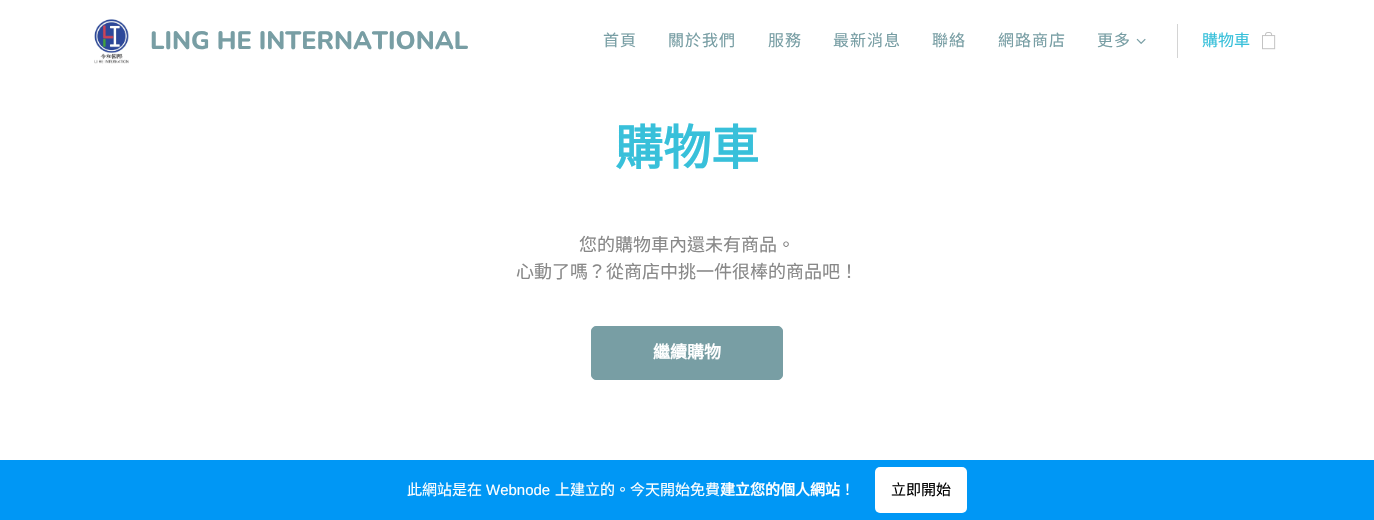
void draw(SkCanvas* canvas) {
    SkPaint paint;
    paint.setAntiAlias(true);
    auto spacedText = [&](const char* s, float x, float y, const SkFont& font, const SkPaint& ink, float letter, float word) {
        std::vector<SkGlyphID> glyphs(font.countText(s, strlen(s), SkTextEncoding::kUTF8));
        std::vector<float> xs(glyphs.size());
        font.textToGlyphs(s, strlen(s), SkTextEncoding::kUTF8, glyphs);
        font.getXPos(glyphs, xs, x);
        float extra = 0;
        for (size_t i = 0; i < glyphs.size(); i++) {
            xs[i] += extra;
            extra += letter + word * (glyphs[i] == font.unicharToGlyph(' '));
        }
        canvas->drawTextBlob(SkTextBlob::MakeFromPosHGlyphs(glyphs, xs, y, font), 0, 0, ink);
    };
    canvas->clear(0xFFFFFFFF);
    canvas->drawImageRect(SkImages::DeferredFromEncodedData(SkData::MakeFromFileName("img1.png")), SkRect::MakeXYWH(94, 19, 35, 45), SkSamplingOptions());
    SkFont font1(fontMgr->matchFamilyStyle("Nunito", SkFontStyle(800, SkFontStyle::kNormal_Width, SkFontStyle::kUpright_Slant)), 25.25f);
    font1.setSubpixel(true);
    paint.setColor(0xFF789EA4);
    canvas->drawString("LING HE INTERNATIONAL", 150, 49, font1, paint);
    SkFont font2(fontMgr->matchFamilyStyle("Noto Sans CJK TC", SkFontStyle::Normal()), 16);
    font2.setSubpixel(true);
    spacedText("首頁", 603, 46, font2, paint, 1, 0);
    spacedText("關於我們", 668, 46, font2, paint, 1, 0);
    spacedText("服務", 768, 46, font2, paint, 1, 0);
    spacedText("最新消息", 833, 46, font2, paint, 1, 0);
    spacedText("聯絡", 932, 46, font2, paint, 1, 0);
    spacedText("網路商店", 998, 46, font2, paint, 1, 0);
    spacedText("更多", 1097, 46, font2, paint, 1, 0);
    canvas->drawImageRect(SkImages::DeferredFromEncodedData(SkData::MakeFromFileName("img2.png")), SkRect::MakeXYWH(1136, 38, 10, 6), SkSamplingOptions());
    paint.setColor(0xFFD4D4D4);
    canvas->drawRect(SkRect::MakeXYWH(1177, 24, 1, 34), paint);
    paint.setColor(0xFF38C0DA);
    canvas->drawString("購物車", 1202, 46, font2, paint);
    canvas->drawImageRect(SkImages::DeferredFromEncodedData(SkData::MakeFromFileName("img3.png")), SkRect::MakeXYWH(1262, 32, 14, 18), SkSamplingOptions());
    SkFont font3(fontMgr->matchFamilyStyle("Noto Sans CJK TC", SkFontStyle::Bold()), 48);
    font3.setSubpixel(true);
    canvas->drawString("購物車", 615, 165, font3, paint);
    SkFont font4(fontMgr->matchFamilyStyle("Noto Sans CJK TC", SkFontStyle::Normal()), 18);
    font4.setSubpixel(true);
    paint.setColor(0xFF888888);
    canvas->drawString("您的購物車內還未有商品。", 579, 251, font4, paint);
    canvas->drawString("心動了嗎？從商店中挑一件很棒的商品吧！", 516, 278, font4, paint);
    paint.setColor(0xFF789EA4);
    canvas->drawRoundRect(SkRect::MakeXYWH(591.5f, 326.5f, 191, 53), 4.5f, 4.5f, paint);
    paint.setStyle(SkPaint::kStroke_Style);
    paint.setStrokeWidth(1);
    canvas->drawRoundRect(SkRect::MakeXYWH(591.5f, 326.5f, 191, 53), 4.5f, 4.5f, paint);
    SkFont font5(fontMgr->matchFamilyStyle("Noto Sans CJK TC", SkFontStyle::Bold()), 17);
    font5.setSubpixel(true);
    paint.setStyle(SkPaint::kFill_Style);
    paint.setColor(0xFFFFFFFF);
    canvas->drawString("繼續購物", 653, 358, font5, paint);
    paint.setColor(0xFF0097F5);
    canvas->drawRect(SkRect::MakeXYWH(0, 460, 1374, 60), paint);
    SkFont font6(fontMgr->matchFamilyStyle("Noto Sans CJK TC", SkFontStyle::Normal()), 15);
    font6.setSubpixel(true);
    paint.setColor(0xFFFFFFFF);
    canvas->drawString("此網站是在", 407, 495, font6, paint);
    SkFont font7(fontMgr->matchFamilyStyle("Liberation Sans", SkFontStyle::Normal()), 15);
    font7.setSubpixel(true);
    canvas->drawString("Webnode", 486, 495, font7, paint);
    canvas->drawString("上建立的。今天開始免費", 555, 495, font6, paint);
    SkFont font8(fontMgr->matchFamilyStyle("Noto Sans CJK TC", SkFontStyle::Bold()), 15);
    font8.setSubpixel(true);
    canvas->drawString("建立您的個人網站", 720, 495, font8, paint);
    canvas->drawString("！", 840, 495, font6, paint);
    canvas->drawRoundRect(SkRect::MakeXYWH(875, 467, 92, 46), 5, 5, paint);
    paint.setColor(0xFF000000);
    canvas->drawString("立即開始", 891, 495, font6, paint);
}
